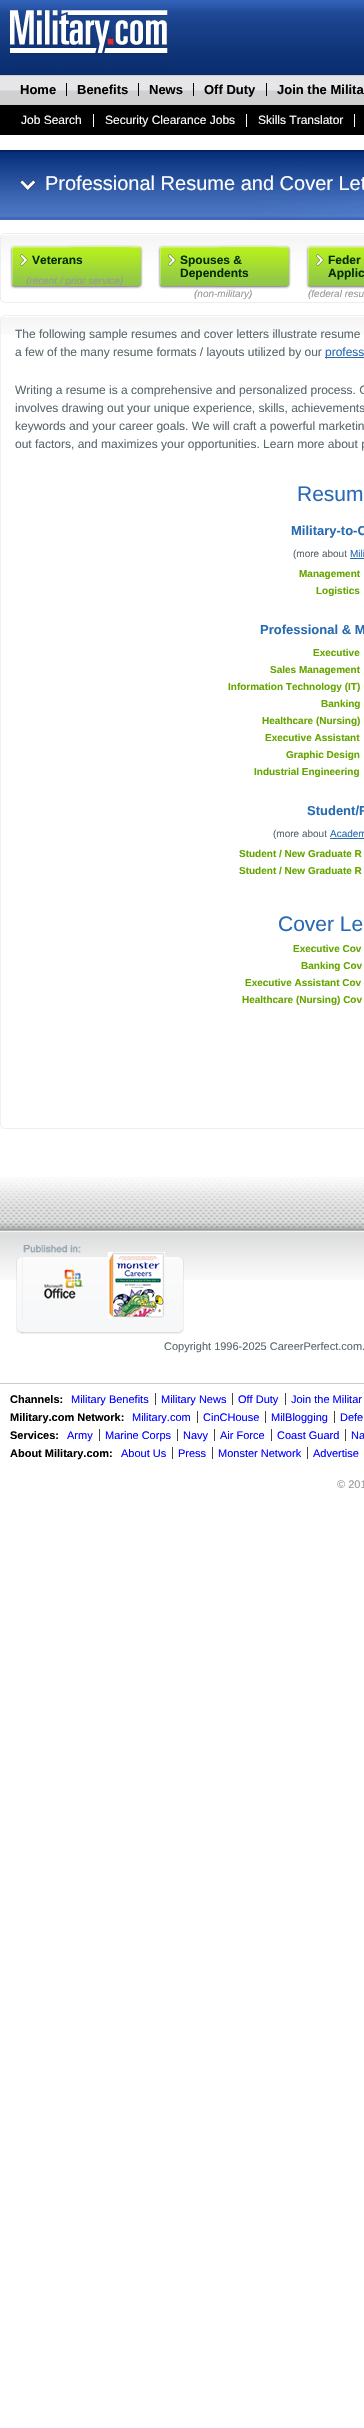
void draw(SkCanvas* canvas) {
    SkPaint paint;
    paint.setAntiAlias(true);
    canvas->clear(0xFFFFFFFF);
    canvas->drawImageRect(SkImages::DeferredFromEncodedData(SkData::MakeFromFileName("img1.png")), SkRect::MakeXYWH(0, 0, 364, 135), SkSamplingOptions());
    canvas->drawImageRect(SkImages::DeferredFromEncodedData(SkData::MakeFromFileName("img2.png")), SkRect::MakeXYWH(10, 10, 158, 55), SkSamplingOptions());
    SkFont font1(fontMgr->matchFamilyStyle("Liberation Sans", SkFontStyle::Bold()), 13);
    font1.setSubpixel(true);
    paint.setColor(0xFF000000);
    canvas->drawString("Home", 20, 94, font1, paint);
    canvas->drawRect(SkRect::MakeXYWH(66, 83, 1, 13), paint);
    canvas->drawString("Benefits", 77, 94, font1, paint);
    canvas->drawRect(SkRect::MakeXYWH(138, 83, 1, 13), paint);
    canvas->drawString("News", 149, 94, font1, paint);
    canvas->drawRect(SkRect::MakeXYWH(193, 83, 1, 13), paint);
    canvas->drawString("Off Duty", 204, 94, font1, paint);
    canvas->drawRect(SkRect::MakeXYWH(266, 83, 1, 13), paint);
    canvas->drawString("Join the Milita", 277, 94, font1, paint);
    SkFont font2(fontMgr->matchFamilyStyle("Liberation Sans", SkFontStyle::Normal()), 12);
    font2.setSubpixel(true);
    paint.setColor(0xFFFFFFFF);
    canvas->drawString("Job Search", 21, 124, font2, paint);
    canvas->drawRect(SkRect::MakeXYWH(93, 114, 1, 13), paint);
    canvas->drawString("Security Clearance Jobs", 105, 124, font2, paint);
    canvas->drawRect(SkRect::MakeXYWH(246, 114, 1, 13), paint);
    canvas->drawString("Skills Translator", 258, 124, font2, paint);
    canvas->drawRect(SkRect::MakeXYWH(354, 114, 1, 13), paint);
    canvas->drawImageRect(SkImages::DeferredFromEncodedData(SkData::MakeFromFileName("img3.png")), SkRect::MakeXYWH(0, 150, 364, 70), SkSamplingOptions());
    paint.setColor(0xFFEEEFF0);
    canvas->drawRect(SkRect::MakeXYWH(0, 320, 1, 804), paint);
    canvas->drawImageRect(SkImages::DeferredFromEncodedData(SkData::MakeFromFileName("img4.png")), SkRect::MakeXYWH(1, 320, 363, 15), SkSamplingOptions());
    canvas->drawImageRect(SkImages::DeferredFromEncodedData(SkData::MakeFromFileName("img5.png")), SkRect::MakeXYWH(20, 180, 16, 10), SkSamplingOptions());
    SkFont font3(fontMgr->matchFamilyStyle("Liberation Sans", SkFontStyle::Normal()), 20);
    font3.setSubpixel(true);
    paint.setColor(0xFFFFFFFF);
    canvas->drawString("Professional Resume and Cover Let", 45, 190, font3, paint);
    canvas->drawImageRect(SkImages::DeferredFromEncodedData(SkData::MakeFromFileName("img6.png")), SkRect::MakeXYWH(0, 233, 364, 70), SkSamplingOptions());
    canvas->drawImageRect(SkImages::DeferredFromEncodedData(SkData::MakeFromFileName("img7.png")), SkRect::MakeXYWH(10, 245, 133, 44), SkSamplingOptions());
    SkFont font4(fontMgr->matchFamilyStyle("Liberation Sans", SkFontStyle::Bold()), 12);
    font4.setSubpixel(true);
    paint.setColor(0xFF022F00);
    canvas->drawString("Veterans", 32, 264, font4, paint);
    SkFont font5(fontMgr->matchFamilyStyle("Liberation Sans", SkFontStyle::Italic()), 10);
    font5.setSubpixel(true);
    paint.setColor(0xFF999999);
    canvas->drawString("(recent / prior service)", 26, 284, font5, paint);
    canvas->drawImageRect(SkImages::DeferredFromEncodedData(SkData::MakeFromFileName("img7.png")), SkRect::MakeXYWH(158, 245, 133, 44), SkSamplingOptions());
    paint.setColor(0xFF022F00);
    canvas->drawString("Spouses &", 180, 264, font4, paint);
    canvas->drawString("Dependents", 180, 277, font4, paint);
    paint.setColor(0xFF999999);
    canvas->drawString("(non-military)", 194, 297, font5, paint);
    canvas->drawImageRect(SkImages::DeferredFromEncodedData(SkData::MakeFromFileName("img8.png")), SkRect::MakeXYWH(306, 245, 58, 44), SkSamplingOptions());
    paint.setColor(0xFF022F00);
    canvas->drawString("Feder", 328, 264, font4, paint);
    canvas->drawString("Applic", 328, 277, font4, paint);
    paint.setColor(0xFF999999);
    canvas->drawString("(federal resu", 308, 297, font5, paint);
    paint.setColor(0xFF5B686D);
    canvas->drawString("The following sample resumes and cover letters illustrate resume", 15, 338, font2, paint);
    canvas->drawString("a few of the many resume formats / layouts utilized by our", 15, 356, font2, paint);
    paint.setColor(0xFF296BB3);
    canvas->drawRect(SkRect::MakeXYWH(325, 357, 39, 1), paint);
    canvas->drawString("profess", 325, 356, font2, paint);
    paint.setColor(0xFF5B686D);
    canvas->drawString("Writing a resume is a comprehensive and personalized process. C", 15, 394, font2, paint);
    canvas->drawString("involves drawing out your unique experience, skills, achievements", 15, 412, font2, paint);
    canvas->drawString("keywords and your career goals. We will craft a powerful marketin", 15, 430, font2, paint);
    canvas->drawString("out factors, and maximizes your opportunities. Learn more about p", 15, 448, font2, paint);
    SkFont font6(fontMgr->matchFamilyStyle("Liberation Sans", SkFontStyle::Normal()), 21);
    font6.setSubpixel(true);
    paint.setColor(0xFF296BB3);
    canvas->drawString("Resum", 297, 501, font6, paint);
    canvas->drawString("Military-to-C", 291, 535, font1, paint);
    SkFont font7(fontMgr->matchFamilyStyle("Liberation Sans", SkFontStyle::Normal()), 10);
    font7.setSubpixel(true);
    paint.setColor(0xFF5B686D);
    canvas->drawString("(more about", 293, 557, font7, paint);
    paint.setColor(0xFF296BB3);
    canvas->drawString("Mili", 350, 557, font7, paint);
    canvas->drawRect(SkRect::MakeXYWH(350, 558, 14, 1), paint);
    SkFont font8(fontMgr->matchFamilyStyle("Liberation Sans", SkFontStyle::Bold()), 10);
    font8.setSubpixel(true);
    paint.setColor(0xFF65A500);
    canvas->drawString("Management", 299, 577, font8, paint);
    canvas->drawString("Logistics", 316, 594, font8, paint);
    paint.setColor(0xFF296BB3);
    canvas->drawString("Professional & M", 260, 634, font1, paint);
    paint.setColor(0xFF65A500);
    canvas->drawString("Executive", 313, 656, font8, paint);
    canvas->drawString("Sales Management", 270, 673, font8, paint);
    canvas->drawString("Information Technology (IT)", 228, 690, font8, paint);
    canvas->drawString("Banking", 321, 707, font8, paint);
    canvas->drawString("Healthcare (Nursing)", 262, 724, font8, paint);
    canvas->drawString("Executive Assistant", 265, 741, font8, paint);
    canvas->drawString("Graphic Design", 286, 758, font8, paint);
    canvas->drawString("Industrial Engineering", 254, 775, font8, paint);
    paint.setColor(0xFF296BB3);
    canvas->drawString("Student/R", 307, 815, font1, paint);
    paint.setColor(0xFF5B686D);
    canvas->drawString("(more about", 273, 837, font7, paint);
    paint.setColor(0xFF296BB3);
    canvas->drawString("Academ", 330, 837, font7, paint);
    canvas->drawRect(SkRect::MakeXYWH(330, 838, 34, 1), paint);
    paint.setColor(0xFF65A500);
    canvas->drawString("Student / New Graduate R", 239, 857, font8, paint);
    canvas->drawString("Student / New Graduate R", 239, 874, font8, paint);
    paint.setColor(0xFF296BB3);
    canvas->drawString("Cover Le", 278, 931, font6, paint);
    paint.setColor(0xFF65A500);
    canvas->drawString("Executive Cov", 293, 952, font8, paint);
    canvas->drawString("Banking Cov", 301, 969, font8, paint);
    canvas->drawString("Executive Assistant Cov", 245, 986, font8, paint);
    canvas->drawString("Healthcare (Nursing) Cov", 242, 1003, font8, paint);
    canvas->drawImageRect(SkImages::DeferredFromEncodedData(SkData::MakeFromFileName("img9.png")), SkRect::MakeXYWH(0, 315, 364, 5), SkSamplingOptions());
    canvas->drawImageRect(SkImages::DeferredFromEncodedData(SkData::MakeFromFileName("img10.png")), SkRect::MakeXYWH(0, 1124, 364, 5), SkSamplingOptions());
    canvas->drawImageRect(SkImages::DeferredFromEncodedData(SkData::MakeFromFileName("img18.png")), SkRect::MakeXYWH(0, 1231, 364, 49), SkSamplingOptions());
    canvas->drawImageRect(SkImages::DeferredFromEncodedData(SkData::MakeFromFileName("img11.png")), SkRect::MakeXYWH(16, 1257, 7, 77), SkSamplingOptions());
    canvas->drawImageRect(SkImages::DeferredFromEncodedData(SkData::MakeFromFileName("img12.png")), SkRect::MakeXYWH(178, 1257, 6, 77), SkSamplingOptions());
    canvas->drawImageRect(SkImages::DeferredFromEncodedData(SkData::MakeFromFileName("img13.png")), SkRect::MakeXYWH(22, 1257, 156, 77), SkSamplingOptions());
    canvas->drawImageRect(SkImages::DeferredFromEncodedData(SkData::MakeFromFileName("img14.png")), SkRect::MakeXYWH(23, 1245, 58, 8), SkSamplingOptions());
    canvas->drawImageRect(SkImages::DeferredFromEncodedData(SkData::MakeFromFileName("img15.png")), SkRect::MakeXYWH(108, 1252, 57, 66), SkSamplingOptions());
    paint.setColor(0xFFF1F1F1);
    canvas->drawRect(SkRect::MakeXYWH(22, 1252, 1, 68), paint);
    canvas->drawImageRect(SkImages::DeferredFromEncodedData(SkData::MakeFromFileName("img16.png")), SkRect::MakeXYWH(44, 1269, 39, 30), SkSamplingOptions());
    canvas->drawImageRect(SkImages::DeferredFromEncodedData(SkData::MakeFromFileName("img17.png")), SkRect::MakeXYWH(0, 1177, 364, 54), SkSamplingOptions());
    SkFont font9(fontMgr->matchFamilyStyle("Liberation Sans", SkFontStyle::Normal()), 11);
    font9.setSubpixel(true);
    paint.setColor(0xFF5B686D);
    canvas->drawString("Copyright 1996-2025 CareerPerfect.com.", 164, 1350, font9, paint);
    paint.setColor(0xFFCCCCCC);
    canvas->drawRect(SkRect::MakeXYWH(0, 1383, 364, 1), paint);
    SkFont font10(fontMgr->matchFamilyStyle("Liberation Sans", SkFontStyle::Bold()), 11);
    font10.setSubpixel(true);
    paint.setColor(0xFF000000);
    canvas->drawString("Channels:", 10, 1403, font10, paint);
    paint.setColor(0xFF0000FF);
    canvas->drawString("Military Benefits", 71, 1403, font9, paint);
    canvas->drawString("Military News", 161, 1403, font9, paint);
    paint.setColor(0xFF444444);
    canvas->drawRect(SkRect::MakeXYWH(155, 1393, 1, 12), paint);
    paint.setColor(0xFF0000FF);
    canvas->drawString("Off Duty", 238, 1403, font9, paint);
    paint.setColor(0xFF444444);
    canvas->drawRect(SkRect::MakeXYWH(232, 1393, 1, 12), paint);
    paint.setColor(0xFF0000FF);
    canvas->drawString("Join the Militar", 291, 1403, font9, paint);
    paint.setColor(0xFF444444);
    canvas->drawRect(SkRect::MakeXYWH(285, 1393, 1, 12), paint);
    paint.setColor(0xFF000000);
    canvas->drawString("Military.com Network:", 10, 1421, font10, paint);
    paint.setColor(0xFF0000FF);
    canvas->drawString("Military.com", 132, 1421, font9, paint);
    canvas->drawString("CinCHouse", 203, 1421, font9, paint);
    paint.setColor(0xFF444444);
    canvas->drawRect(SkRect::MakeXYWH(197, 1411, 1, 12), paint);
    paint.setColor(0xFF0000FF);
    canvas->drawString("MilBlogging", 271, 1421, font9, paint);
    paint.setColor(0xFF444444);
    canvas->drawRect(SkRect::MakeXYWH(265, 1411, 1, 12), paint);
    paint.setColor(0xFF0000FF);
    canvas->drawString("Defe", 340, 1421, font9, paint);
    paint.setColor(0xFF444444);
    canvas->drawRect(SkRect::MakeXYWH(334, 1411, 1, 12), paint);
    paint.setColor(0xFF000000);
    canvas->drawString("Services:", 10, 1439, font10, paint);
    paint.setColor(0xFF0000FF);
    canvas->drawString("Army", 67, 1439, font9, paint);
    canvas->drawString("Marine Corps", 105, 1439, font9, paint);
    paint.setColor(0xFF444444);
    canvas->drawRect(SkRect::MakeXYWH(99, 1429, 1, 12), paint);
    paint.setColor(0xFF0000FF);
    canvas->drawString("Navy", 183, 1439, font9, paint);
    paint.setColor(0xFF444444);
    canvas->drawRect(SkRect::MakeXYWH(177, 1429, 1, 12), paint);
    paint.setColor(0xFF0000FF);
    canvas->drawString("Air Force", 220, 1439, font9, paint);
    paint.setColor(0xFF444444);
    canvas->drawRect(SkRect::MakeXYWH(214, 1429, 1, 12), paint);
    paint.setColor(0xFF0000FF);
    canvas->drawString("Coast Guard", 277, 1439, font9, paint);
    paint.setColor(0xFF444444);
    canvas->drawRect(SkRect::MakeXYWH(271, 1429, 1, 12), paint);
    paint.setColor(0xFF0000FF);
    canvas->drawString("Na", 351, 1439, font9, paint);
    paint.setColor(0xFF444444);
    canvas->drawRect(SkRect::MakeXYWH(345, 1429, 1, 12), paint);
    paint.setColor(0xFF000000);
    canvas->drawString("About Military.com:", 10, 1457, font10, paint);
    paint.setColor(0xFF0000FF);
    canvas->drawString("About Us", 121, 1457, font9, paint);
    canvas->drawString("Press", 178, 1457, font9, paint);
    paint.setColor(0xFF444444);
    canvas->drawRect(SkRect::MakeXYWH(172, 1447, 1, 12), paint);
    paint.setColor(0xFF0000FF);
    canvas->drawString("Monster Network", 218, 1457, font9, paint);
    paint.setColor(0xFF444444);
    canvas->drawRect(SkRect::MakeXYWH(212, 1447, 1, 12), paint);
    paint.setColor(0xFF0000FF);
    canvas->drawString("Advertise", 313, 1457, font9, paint);
    paint.setColor(0xFF444444);
    canvas->drawRect(SkRect::MakeXYWH(307, 1447, 1, 12), paint);
    paint.setColor(0xFF999999);
    canvas->drawString("© 201", 337, 1488, font9, paint);
}
